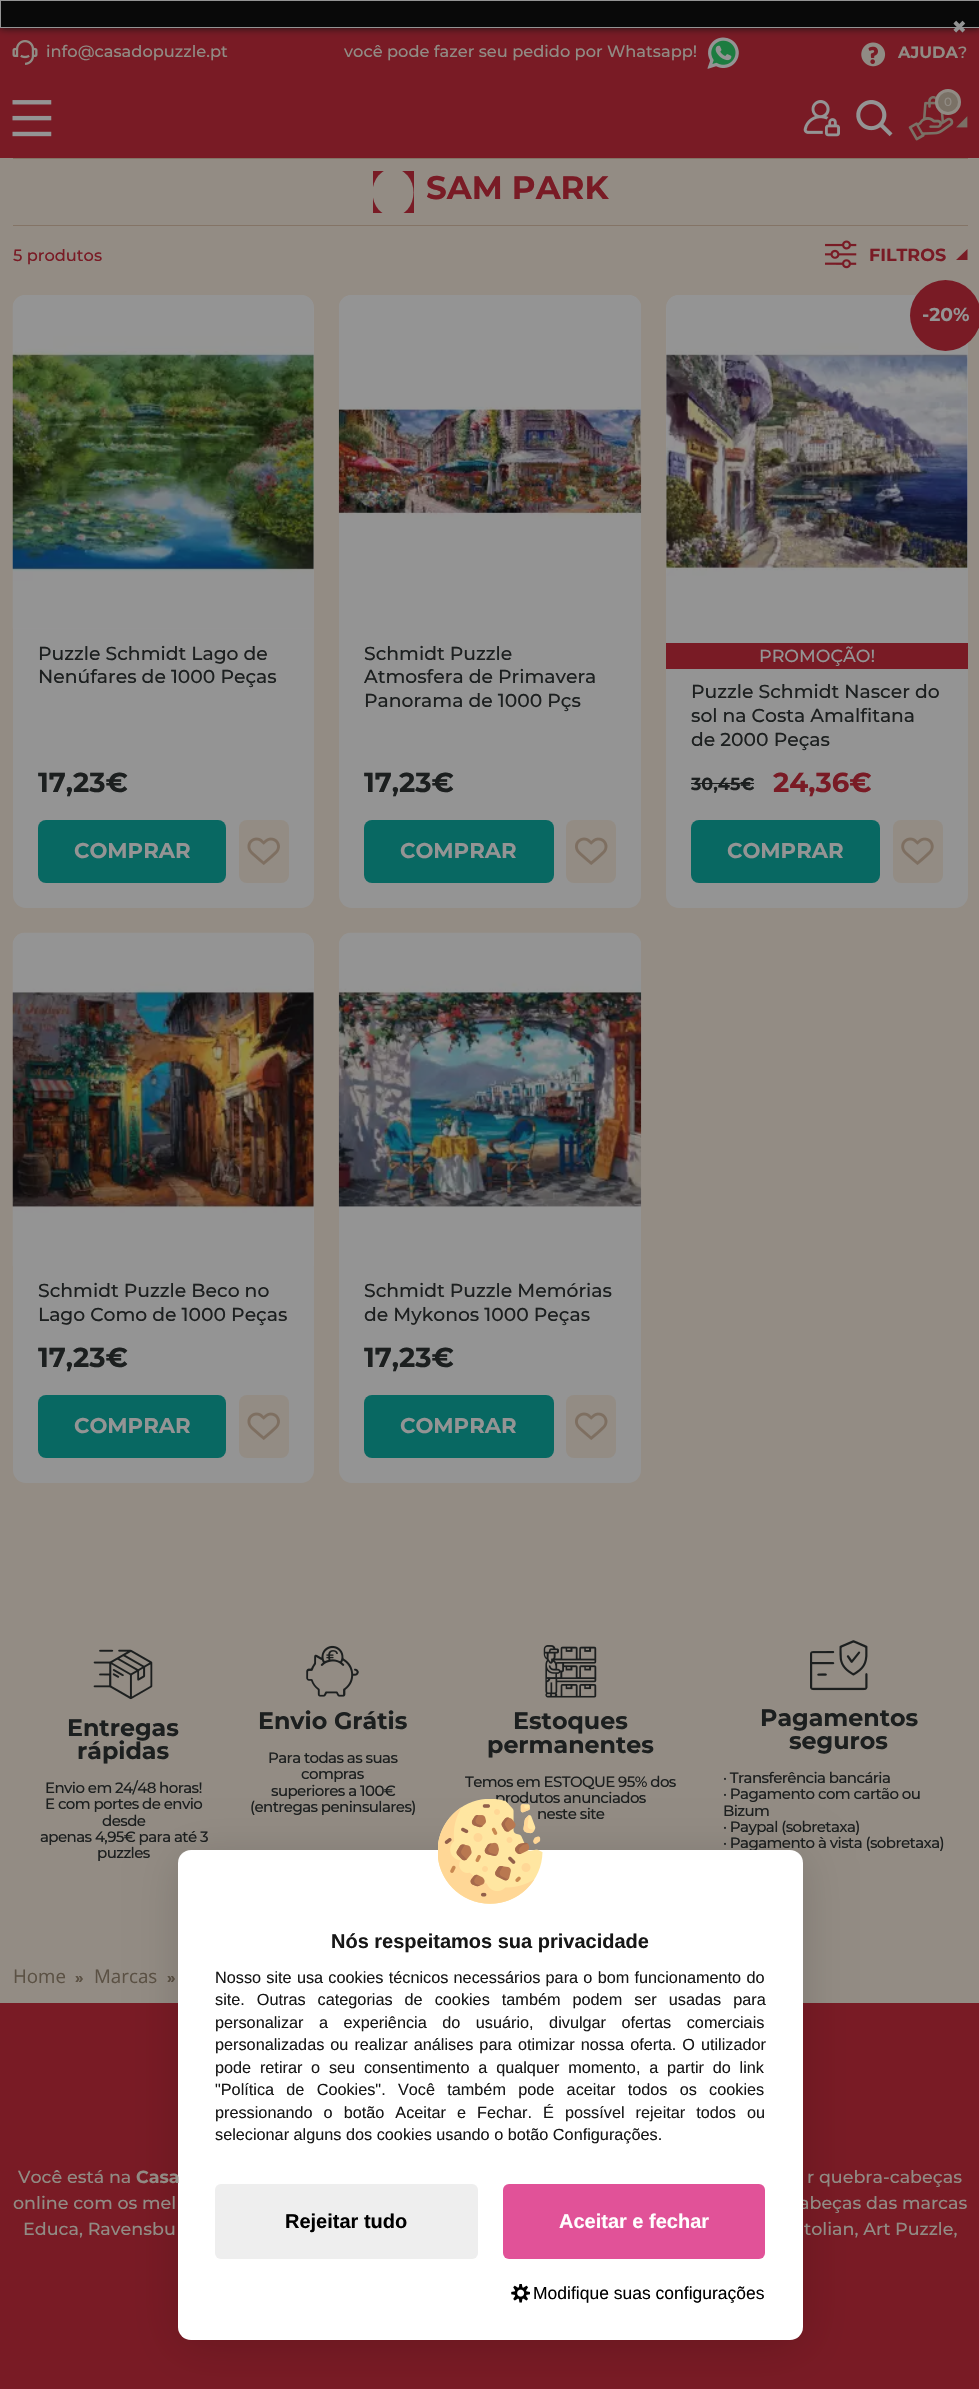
void draw(SkCanvas* canvas) {
    SkPaint paint;
    paint.setAntiAlias(true);
    auto spacedText = [&](const char* s, float x, float y, const SkFont& font, const SkPaint& ink, float letter, float word) {
        std::vector<SkGlyphID> glyphs(font.countText(s, strlen(s), SkTextEncoding::kUTF8));
        std::vector<float> xs(glyphs.size());
        font.textToGlyphs(s, strlen(s), SkTextEncoding::kUTF8, glyphs);
        font.getXPos(glyphs, xs, x);
        float extra = 0;
        for (size_t i = 0; i < glyphs.size(); i++) {
            xs[i] += extra;
            extra += letter + word * (glyphs[i] == font.unicharToGlyph(' '));
        }
        canvas->drawTextBlob(SkTextBlob::MakeFromPosHGlyphs(glyphs, xs, y, font), 0, 0, ink);
    };
    canvas->clear(0xFF938C84);
    paint.setColor(0xFF791B25);
    canvas->drawRect(SkRect::MakeXYWH(0, 28, 979, 130), paint);
    canvas->drawImageRect(SkImages::DeferredFromEncodedData(SkData::MakeFromFileName("img1.png")), SkRect::MakeXYWH(12, 40, 26, 25), SkSamplingOptions());
    {
        const SkColor colors[] = {0xFF1C7C40, 0xFF791B25};
        const float stops[] = {0.6f, 0.6f};
        paint.setShader(SkGradientShader::MakeRadial({723, 53}, 22, colors, stops, 2, SkTileMode::kClamp));
        paint.setAlpha(255);
    }
    canvas->drawRect(SkRect::MakeXYWH(710, 40, 26, 26), paint);
    paint.setShader(nullptr);
    paint.setColor(0xFF1C7C40);
    canvas->drawRect(SkRect::MakeXYWH(711, 60, 5, 4), paint);
    canvas->drawImageRect(SkImages::DeferredFromEncodedData(SkData::MakeFromFileName("img2.png")), SkRect::MakeXYWH(707, 37, 32, 32), SkSamplingOptions());
    paint.setColor(0xFF111111);
    paint.setMaskFilter(SkMaskFilter::MakeBlur(kNormal_SkBlurStyle, 4));
    canvas->drawRect(SkRect::MakeXYWH(0, 0, 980, 28), paint);
    paint.setMaskFilter(nullptr);
    paint.setColor(0xFF090909);
    canvas->drawRect(SkRect::MakeXYWH(0.5f, 0.5f, 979, 27), paint);
    paint.setStyle(SkPaint::kStroke_Style);
    paint.setStrokeWidth(1);
    paint.setColor(0xFF949494);
    canvas->drawRect(SkRect::MakeXYWH(0.5f, 0.5f, 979, 27), paint);
    SkFont font1(fontMgr->matchFamilyStyle("DejaVu Sans", SkFontStyle::Normal()), 17.5f);
    font1.setSubpixel(true);
    paint.setStyle(SkPaint::kFill_Style);
    canvas->drawString("✖", 952, 33, font1, paint);
    SkFont font2(fontMgr->matchFamilyStyle("Montserrat", SkFontStyle(500, SkFontStyle::kNormal_Width, SkFontStyle::kUpright_Slant)), 16.25f);
    font2.setSubpixel(true);
    paint.setColor(0xFF918B84);
    canvas->drawString("info@casadopuzzle.pt", 46, 57, font2, paint);
    canvas->drawString("você pode fazer seu pedido por Whatsapp!", 344, 57, font2, paint);
    canvas->drawImageRect(SkImages::DeferredFromEncodedData(SkData::MakeFromFileName("img3.png")), SkRect::MakeXYWH(861, 42, 25, 25), SkSamplingOptions());
    SkFont font3(fontMgr->matchFamilyStyle("Montserrat", SkFontStyle::Bold()), 16.25f);
    font3.setSubpixel(true);
    canvas->drawString("AJUDA", 898, 58, font3, paint);
    canvas->drawString("?", 958, 58, font2, paint);
    canvas->drawImageRect(SkImages::DeferredFromEncodedData(SkData::MakeFromFileName("img4.png")), SkRect::MakeXYWH(12, 100, 40, 37), SkSamplingOptions());
    canvas->drawImageRect(SkImages::DeferredFromEncodedData(SkData::MakeFromFileName("img5.png")), SkRect::MakeXYWH(803, 100, 37, 37), SkSamplingOptions());
    canvas->drawImageRect(SkImages::DeferredFromEncodedData(SkData::MakeFromFileName("img6.png")), SkRect::MakeXYWH(856, 100, 37, 37), SkSamplingOptions());
    canvas->drawImageRect(SkImages::DeferredFromEncodedData(SkData::MakeFromFileName("img7.png")), SkRect::MakeXYWH(908, 96, 60, 45), SkSamplingOptions());
    paint.setColor(0xFF7A7166);
    canvas->drawCircle(948, 102, 11.5f, paint);
    paint.setStyle(SkPaint::kStroke_Style);
    paint.setStrokeWidth(3);
    paint.setColor(0xFF918B84);
    canvas->drawCircle(948, 102, 11.5f, paint);
    SkFont font4(fontMgr->matchFamilyStyle("Montserrat", SkFontStyle(500, SkFontStyle::kNormal_Width, SkFontStyle::kUpright_Slant)), 12);
    font4.setSubpixel(true);
    paint.setStyle(SkPaint::kFill_Style);
    canvas->drawString("0", 944, 106, font4, paint);
    paint.setColor(0xFF847466);
    canvas->drawRect(SkRect::MakeXYWH(13, 158, 955, 1), paint);
    canvas->drawRect(SkRect::MakeXYWH(13, 225, 955, 1), paint);
    paint.setColor(0xFF791B25);
    canvas->drawRect(SkRect::MakeXYWH(373, 171, 41, 42), paint);
    paint.setColor(0xFF938C84);
    canvas->drawOval(SkRect::MakeXYWH(372.5f, 168.5f, 41, 48), paint);
    SkFont font5(fontMgr->matchFamilyStyle("Montserrat", SkFontStyle::Bold()), 32.5f);
    font5.setSubpixel(true);
    paint.setColor(0xFF791B25);
    canvas->drawString("SAM PARK", 426, 199, font5, paint);
    canvas->drawString("5 produtos", 13, 261, font2, paint);
    canvas->drawImageRect(SkImages::DeferredFromEncodedData(SkData::MakeFromFileName("img8.png")), SkRect::MakeXYWH(825, 240, 32, 29), SkSamplingOptions());
    SkFont font6(fontMgr->matchFamilyStyle("Montserrat", SkFontStyle::Bold()), 17.5f);
    font6.setSubpixel(true);
    canvas->drawString("FILTROS", 869, 261, font6, paint);
    canvas->drawPath(SkPathBuilder().moveTo(967.5f, 260).lineTo(956, 260).lineTo(967.5f, 249).close().detach(), paint);
    paint.setColor(0xFF949494);
    canvas->drawRoundRect(SkRect::MakeXYWH(13, 295, 301, 613), 13, 13, paint);
    canvas->drawImageRect(SkImages::DeferredFromEncodedData(SkData::MakeFromFileName("img9.png")), SkRect::MakeXYWH(12, 295, 302, 334), SkSamplingOptions());
    SkFont font7(fontMgr->matchFamilyStyle("Montserrat", SkFontStyle(500, SkFontStyle::kNormal_Width, SkFontStyle::kUpright_Slant)), 18.75f);
    font7.setSubpixel(true);
    paint.setColor(0xFF1C1F1F);
    canvas->drawString("Puzzle Schmidt Lago de", 38, 660, font7, paint);
    canvas->drawString("Nenúfares de 1000 Peças", 38, 683, font7, paint);
    SkFont font8(fontMgr->matchFamilyStyle("Montserrat", SkFontStyle::Bold()), 27.5f);
    font8.setSubpixel(true);
    canvas->drawString("17,23€", 38, 792, font8, paint);
    paint.setColor(0xFF086862);
    canvas->drawRoundRect(SkRect::MakeXYWH(38, 820, 188, 63), 8, 8, paint);
    SkFont font9(fontMgr->matchFamilyStyle("Montserrat", SkFontStyle::Bold()), 21.25f);
    font9.setSubpixel(true);
    paint.setColor(0xFF949494);
    canvas->drawString("COMPRAR", 74, 858, font9, paint);
    paint.setColor(0xFF938C84);
    canvas->drawRoundRect(SkRect::MakeXYWH(239, 820, 50, 63), 8, 8, paint);
    canvas->drawImageRect(SkImages::DeferredFromEncodedData(SkData::MakeFromFileName("img10.png")), SkRect::MakeXYWH(247, 837, 33, 28), SkSamplingOptions());
    paint.setColor(0xFF949494);
    canvas->drawRoundRect(SkRect::MakeXYWH(339, 295, 302, 613), 13, 13, paint);
    canvas->drawImageRect(SkImages::DeferredFromEncodedData(SkData::MakeFromFileName("img11.png")), SkRect::MakeXYWH(338, 295, 304, 225), SkSamplingOptions());
    paint.setColor(0xFF1C1F1F);
    canvas->drawString("Schmidt Puzzle", 364, 660, font7, paint);
    canvas->drawString("Atmosfera de Primavera", 364, 683, font7, paint);
    canvas->drawString("Panorama de 1000 Pçs", 364, 707, font7, paint);
    canvas->drawString("17,23€", 364, 792, font8, paint);
    paint.setColor(0xFF086862);
    canvas->drawRoundRect(SkRect::MakeXYWH(364, 820, 190, 63), 8, 8, paint);
    paint.setColor(0xFF949494);
    canvas->drawString("COMPRAR", 400, 858, font9, paint);
    paint.setColor(0xFF938C84);
    canvas->drawRoundRect(SkRect::MakeXYWH(566, 820, 50, 63), 8, 8, paint);
    canvas->drawImageRect(SkImages::DeferredFromEncodedData(SkData::MakeFromFileName("img12.png")), SkRect::MakeXYWH(575, 837, 33, 28), SkSamplingOptions());
    paint.setColor(0xFF949494);
    canvas->drawRoundRect(SkRect::MakeXYWH(666, 295, 302, 613), 13, 13, paint);
    canvas->drawImageRect(SkImages::DeferredFromEncodedData(SkData::MakeFromFileName("img13.png")), SkRect::MakeXYWH(666, 295, 302, 281), SkSamplingOptions());
    paint.setColor(0xFF791B25);
    canvas->drawCircle(945.5f, 315.5f, 35.5f, paint);
    SkFont font10(fontMgr->matchFamilyStyle("Montserrat", SkFontStyle::Bold()), 18.75f);
    font10.setSubpixel(true);
    paint.setColor(0xFF949494);
    canvas->drawString("-20%", 922, 321, font10, paint);
    paint.setColor(0xFF791B25);
    canvas->drawRect(SkRect::MakeXYWH(666, 643, 302, 26), paint);
    SkFont font11(fontMgr->matchFamilyStyle("Montserrat", SkFontStyle(500, SkFontStyle::kNormal_Width, SkFontStyle::kUpright_Slant)), 17.5f);
    font11.setSubpixel(true);
    paint.setColor(0xFF949494);
    canvas->drawString("PROMOÇÃO!", 759, 662, font11, paint);
    paint.setColor(0xFF1C1F1F);
    canvas->drawString("Puzzle Schmidt Nascer do", 691, 698, font7, paint);
    canvas->drawString("sol na Costa Amalfitana", 691, 722, font7, paint);
    canvas->drawString("de 2000 Peças", 691, 746, font7, paint);
    canvas->drawString("30,45€", 691, 790, font6, paint);
    canvas->drawRect(SkRect::MakeXYWH(691, 783, 63, 1), paint);
    paint.setColor(0xFF791B25);
    canvas->drawString("24,36€", 773, 792, font8, paint);
    paint.setColor(0xFF086862);
    canvas->drawRoundRect(SkRect::MakeXYWH(691, 820, 189, 63), 8, 8, paint);
    paint.setColor(0xFF949494);
    canvas->drawString("COMPRAR", 727, 858, font9, paint);
    paint.setColor(0xFF938C84);
    canvas->drawRoundRect(SkRect::MakeXYWH(893, 820, 50, 63), 8, 8, paint);
    canvas->drawImageRect(SkImages::DeferredFromEncodedData(SkData::MakeFromFileName("img14.png")), SkRect::MakeXYWH(901, 837, 33, 28), SkSamplingOptions());
    paint.setColor(0xFF949494);
    canvas->drawRoundRect(SkRect::MakeXYWH(13, 933, 301, 550), 13, 13, paint);
    canvas->drawImageRect(SkImages::DeferredFromEncodedData(SkData::MakeFromFileName("img15.png")), SkRect::MakeXYWH(12, 932, 302, 334), SkSamplingOptions());
    paint.setColor(0xFF1C1F1F);
    canvas->drawString("Schmidt Puzzle Beco no", 38, 1297, font7, paint);
    canvas->drawString("Lago Como de 1000 Peças", 38, 1321, font7, paint);
    canvas->drawString("17,23€", 38, 1367, font8, paint);
    paint.setColor(0xFF086862);
    canvas->drawRoundRect(SkRect::MakeXYWH(38, 1395, 188, 63), 8, 8, paint);
    paint.setColor(0xFF949494);
    canvas->drawString("COMPRAR", 74, 1433, font9, paint);
    paint.setColor(0xFF938C84);
    canvas->drawRoundRect(SkRect::MakeXYWH(239, 1395, 50, 63), 8, 8, paint);
    canvas->drawImageRect(SkImages::DeferredFromEncodedData(SkData::MakeFromFileName("img10.png")), SkRect::MakeXYWH(247, 1412, 33, 28), SkSamplingOptions());
    paint.setColor(0xFF949494);
    canvas->drawRoundRect(SkRect::MakeXYWH(339, 933, 302, 550), 13, 13, paint);
    canvas->drawImageRect(SkImages::DeferredFromEncodedData(SkData::MakeFromFileName("img16.png")), SkRect::MakeXYWH(338, 932, 304, 276), SkSamplingOptions());
    paint.setColor(0xFF1C1F1F);
    canvas->drawString("Schmidt Puzzle Memórias", 364, 1297, font7, paint);
    canvas->drawString("de Mykonos 1000 Peças", 364, 1321, font7, paint);
    canvas->drawString("17,23€", 364, 1367, font8, paint);
    paint.setColor(0xFF086862);
    canvas->drawRoundRect(SkRect::MakeXYWH(364, 1395, 190, 63), 8, 8, paint);
    paint.setColor(0xFF949494);
    canvas->drawString("COMPRAR", 400, 1433, font9, paint);
    paint.setColor(0xFF938C84);
    canvas->drawRoundRect(SkRect::MakeXYWH(566, 1395, 50, 63), 8, 8, paint);
    canvas->drawImageRect(SkImages::DeferredFromEncodedData(SkData::MakeFromFileName("img12.png")), SkRect::MakeXYWH(575, 1412, 33, 28), SkSamplingOptions());
    canvas->drawImageRect(SkImages::DeferredFromEncodedData(SkData::MakeFromFileName("img17.png")), SkRect::MakeXYWH(93, 1649, 60, 51), SkSamplingOptions());
    SkFont font12(fontMgr->matchFamilyStyle("Montserrat", SkFontStyle::Bold()), 23.75f);
    font12.setSubpixel(true);
    paint.setColor(0xFF1C1F1F);
    canvas->drawString("Entregas", 67, 1736, font12, paint);
    canvas->drawString("rápidas", 77, 1759, font12, paint);
    SkFont font13(fontMgr->matchFamilyStyle("Montserrat", SkFontStyle(500, SkFontStyle::kNormal_Width, SkFontStyle::kUpright_Slant)), 15);
    font13.setSubpixel(true);
    spacedText("Envio em 24/48 horas!", 45, 1793, font13, paint, -0.6f, 0);
    spacedText("E com portes de envio", 45, 1809, font13, paint, -0.6f, 0);
    spacedText("desde", 102, 1826, font13, paint, -0.6f, 0);
    spacedText("apenas 4,95€ para até 3", 40, 1842, font13, paint, -0.6f, 0);
    spacedText("puzzles", 97, 1858, font13, paint, -0.6f, 0);
    canvas->drawImageRect(SkImages::DeferredFromEncodedData(SkData::MakeFromFileName("img18.png")), SkRect::MakeXYWH(306, 1645, 53, 52), SkSamplingOptions());
    canvas->drawString("Envio Grátis", 258, 1729, font12, paint);
    spacedText("Para todas as suas", 268, 1763, font13, paint, -0.6f, 0);
    spacedText("compras", 301, 1779, font13, paint, -0.6f, 0);
    spacedText("superiores a 100€", 271, 1796, font13, paint, -0.6f, 0);
    spacedText("(entregas peninsulares)", 250, 1812, font13, paint, -0.6f, 0);
    canvas->drawImageRect(SkImages::DeferredFromEncodedData(SkData::MakeFromFileName("img19.png")), SkRect::MakeXYWH(543, 1645, 54, 53), SkSamplingOptions());
    canvas->drawString("Estoques", 513, 1729, font12, paint);
    canvas->drawString("permanentes", 487, 1753, font12, paint);
    spacedText("Temos em ESTOQUE 95% dos", 465, 1787, font13, paint, -0.6f, 0);
    spacedText("produtos anunciados", 495, 1803, font13, paint, -0.6f, 0);
    spacedText("neste site", 537, 1819, font13, paint, -0.6f, 0);
    canvas->drawImageRect(SkImages::DeferredFromEncodedData(SkData::MakeFromFileName("img20.png")), SkRect::MakeXYWH(810, 1640, 58, 51), SkSamplingOptions());
    canvas->drawString("Pagamentos", 760, 1726, font12, paint);
    canvas->drawString("seguros", 789, 1749, font12, paint);
    spacedText("· Transferência bancária", 723, 1783, font13, paint, -0.6f, 0);
    spacedText("· Pagamento com cartão ou", 723, 1799, font13, paint, -0.6f, 0);
    spacedText("Bizum", 723, 1816, font13, paint, -0.6f, 0);
    spacedText("· Paypal (sobretaxa)", 723, 1832, font13, paint, -0.6f, 0);
    spacedText("· Pagamento à vista (sobretaxa)", 723, 1848, font13, paint, -0.6f, 0);
    SkFont font14(fontMgr->matchFamilyStyle("Open Sans", SkFontStyle::Normal()), 18.75f);
    font14.setSubpixel(true);
    paint.setColor(0xFF5B5144);
    canvas->drawString("Home", 13, 1983, font14, paint);
    SkFont font15(fontMgr->matchFamilyStyle("Montserrat", SkFontStyle::Bold()), 15);
    font15.setSubpixel(true);
    canvas->drawString("»", 75, 1983, font15, paint);
    canvas->drawString("Marcas", 94, 1983, font14, paint);
    canvas->drawString("»", 167, 1983, font15, paint);
    paint.setColor(0xFF791B25);
    canvas->drawRect(SkRect::MakeXYWH(0, 2003, 979, 386), paint);
    paint.setColor(0x26000000);
    paint.setMaskFilter(SkMaskFilter::MakeBlur(kNormal_SkBlurStyle, 24));
    canvas->drawRoundRect(SkRect::MakeXYWH(178, 1855, 625, 490), 13, 13, paint);
    paint.setMaskFilter(nullptr);
    paint.setColor(0xFF918B84);
    canvas->drawString("abeças das marcas", 799, 2209, font11, paint);
    paint.setColor(0xFFFFFFFF);
    canvas->drawRoundRect(SkRect::MakeXYWH(178, 1850, 625, 490), 13, 13, paint);
    canvas->drawImageRect(SkImages::DeferredFromEncodedData(SkData::MakeFromFileName("img21.png")), SkRect::MakeXYWH(438, 1799, 105, 105), SkSamplingOptions());
    SkFont font16(fontMgr->matchFamilyStyle("Liberation Sans", SkFontStyle::Bold()), 20);
    font16.setSubpixel(true);
    paint.setColor(0xFF171717);
    canvas->drawString("Nós respeitamos sua privacidade", 331, 1948, font16, paint);
    SkFont font17(fontMgr->matchFamilyStyle("Liberation Sans", SkFontStyle::Normal()), 16.25f);
    font17.setSubpixel(true);
    spacedText("Nosso site usa cookies técnicos necessários para o bom funcionamento do", 215, 1983, font17, paint, 0, 0.75f);
    spacedText("site. Outras categorias de cookies também podem ser usadas para", 215, 2005, font17, paint, 0, 7.5f);
    spacedText("personalizar a experiência do usuário, divulgar ofertas comerciais", 215, 2028, font17, paint, 0, 11);
    spacedText("personalizadas ou realizar análises para otimizar nossa oferta. O utilizador", 215, 2050, font17, paint, 0, 1.5f);
    spacedText("pode retirar o seu consentimento a qualquer momento, a partir do link", 215, 2073, font17, paint, 0, 4.25f);
    spacedText("\"Política de Cookies\". Você também pode aceitar todos os cookies", 215, 2095, font17, paint, 0, 7.75f);
    spacedText("pressionando o botão Aceitar e Fechar. É possível rejeitar todos ou", 215, 2118, font17, paint, 0, 6.5f);
    canvas->drawString("selecionar alguns dos cookies usando o botão Configurações.", 215, 2140, font17, paint);
    paint.setColor(0xFFEEEEEE);
    canvas->drawRoundRect(SkRect::MakeXYWH(215, 2184, 263, 75), 6, 6, paint);
    paint.setColor(0xFF000000);
    canvas->drawString("Rejeitar tudo", 285, 2228, font16, paint);
    paint.setColor(0xFFE15298);
    canvas->drawRoundRect(SkRect::MakeXYWH(503, 2184, 262, 75), 6, 6, paint);
    paint.setColor(0xFFFFFFFF);
    canvas->drawString("Aceitar e fechar", 559, 2228, font16, paint);
    canvas->drawImageRect(SkImages::DeferredFromEncodedData(SkData::MakeFromFileName("img22.png")), SkRect::MakeXYWH(511, 2284, 19, 19), SkSamplingOptions());
    SkFont font18(fontMgr->matchFamilyStyle("Liberation Sans", SkFontStyle::Normal()), 17.5f);
    font18.setSubpixel(true);
    paint.setColor(0xFF000000);
    canvas->drawString("Modifique suas configurações", 533, 2299, font18, paint);
    paint.setColor(0xFF918B84);
    canvas->drawString("Você está na", 18, 2183, font11, paint);
    canvas->drawString("Casa", 136, 2183, font6, paint);
    canvas->drawString("r quebra-cabeças", 807, 2183, font11, paint);
    canvas->drawString("online com os mel", 13, 2209, font11, paint);
    canvas->drawString("Educa, Ravensbu", 23, 2235, font11, paint);
    canvas->drawString("tolian, Art Puzzle,", 804, 2235, font11, paint);
}
